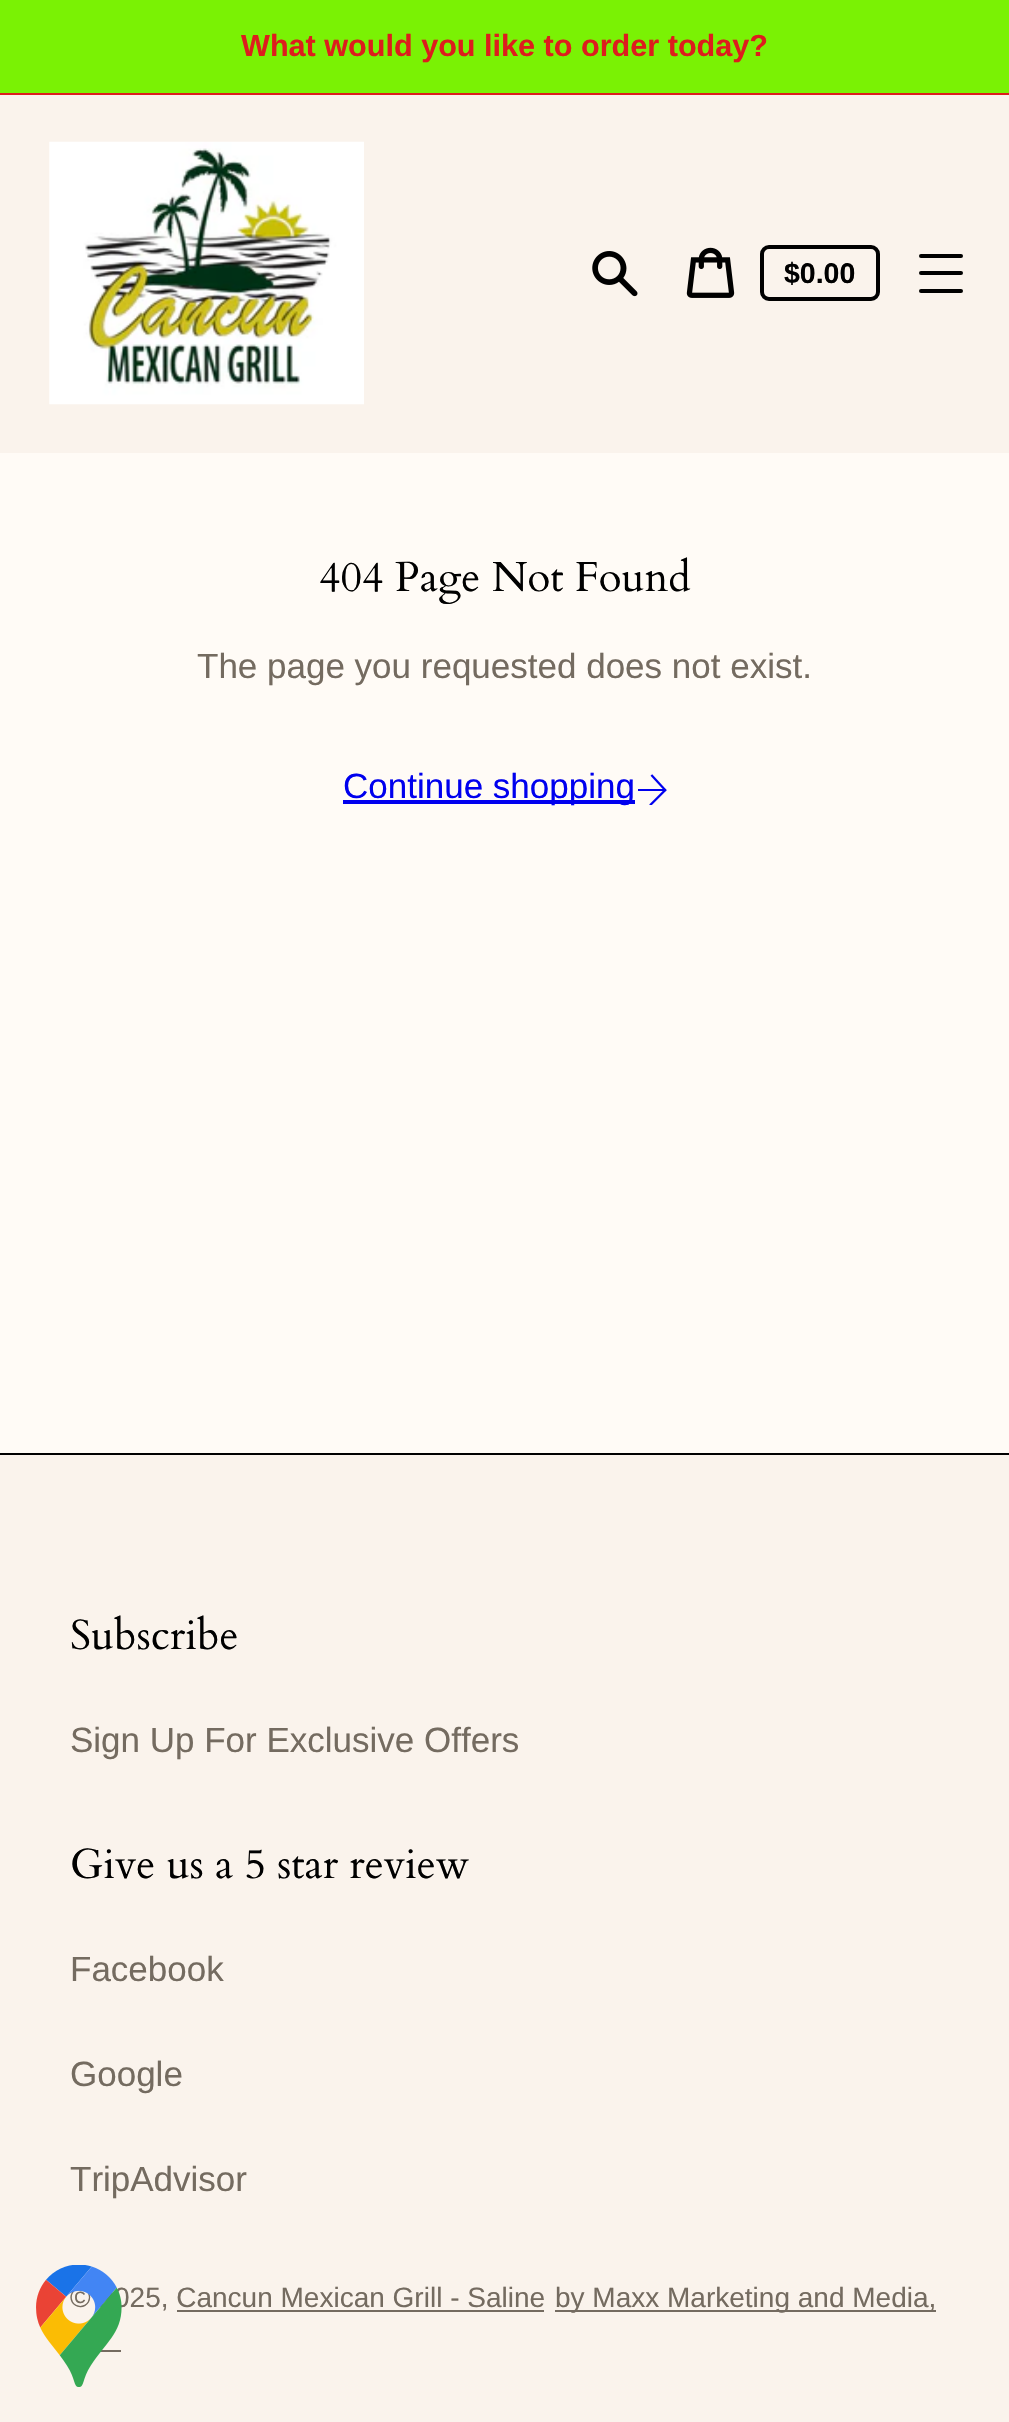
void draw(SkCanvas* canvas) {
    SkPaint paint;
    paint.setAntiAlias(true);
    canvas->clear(0xFFFFFBF6);
    paint.setColor(0xFF7AF204);
    canvas->drawRect(SkRect::MakeXYWH(0, 0, 1009, 93), paint);
    paint.setColor(0xFFDD1D1D);
    canvas->drawRect(SkRect::MakeXYWH(0, 93, 1009, 2), paint);
    SkFont font1(fontMgr->matchFamilyStyle("Liberation Sans", SkFontStyle::Bold()), 30.6f);
    font1.setSubpixel(true);
    canvas->drawString("What would you like to order today?", 241, 56, font1, paint);
    paint.setColor(0xFFFAF3EC);
    canvas->drawRect(SkRect::MakeXYWH(0, 95, 1009, 358), paint);
    canvas->drawImageRect(SkImages::DeferredFromEncodedData(SkData::MakeFromFileName("img1.png")), SkRect::MakeXYWH(49, 141, 315, 264), SkSamplingOptions());
    canvas->drawImageRect(SkImages::DeferredFromEncodedData(SkData::MakeFromFileName("img2.png")), SkRect::MakeXYWH(592, 251, 46, 46), SkSamplingOptions());
    canvas->drawImageRect(SkImages::DeferredFromEncodedData(SkData::MakeFromFileName("img3.png")), SkRect::MakeXYWH(686, 247, 49, 51), SkSamplingOptions());
    paint.setStyle(SkPaint::kStroke_Style);
    paint.setStrokeWidth(4);
    paint.setColor(0xFF000000);
    canvas->drawRoundRect(SkRect::MakeXYWH(762, 247, 116, 52), 7, 7, paint);
    SkFont font2(fontMgr->matchFamilyStyle("Liberation Sans", SkFontStyle::Bold()), 28.5f);
    font2.setSubpixel(true);
    paint.setStyle(SkPaint::kFill_Style);
    canvas->drawString("$0.00", 784, 283, font2, paint);
    canvas->drawRoundRect(SkRect::MakeXYWH(919, 271, 44, 4), 2, 2, paint);
    canvas->drawRoundRect(SkRect::MakeXYWH(919, 254, 44, 4), 2, 2, paint);
    canvas->drawRoundRect(SkRect::MakeXYWH(919, 289, 44, 4), 2, 2, paint);
    SkFont font3(fontMgr->matchFamilyStyle("Cardo", SkFontStyle::Normal()), 42);
    font3.setSubpixel(true);
    canvas->drawString("404 Page Not Found", 319, 591, font3, paint);
    SkFont font4(fontMgr->matchFamilyStyle("Liberation Sans", SkFontStyle::Normal()), 35);
    font4.setSubpixel(true);
    paint.setColor(0xFF746B60);
    canvas->drawString("The page you requested does not exist.", 197, 678, font4, paint);
    paint.setColor(0xFF0000EE);
    canvas->drawRect(SkRect::MakeXYWH(343, 800, 292, 4), paint);
    canvas->drawString("Continue shopping", 343, 798, font4, paint);
    canvas->drawImageRect(SkImages::DeferredFromEncodedData(SkData::MakeFromFileName("img4.png")), SkRect::MakeXYWH(638, 774, 29, 31), SkSamplingOptions());
    paint.setColor(0xFFFAF3EC);
    canvas->drawRect(SkRect::MakeXYWH(0, 1455, 1009, 967), paint);
    paint.setColor(0xFF000000);
    canvas->drawRect(SkRect::MakeXYWH(0, 1453, 1009, 2), paint);
    canvas->drawString("Subscribe", 70, 1649, font3, paint);
    paint.setColor(0xFF746B60);
    canvas->drawString("Sign Up For Exclusive Offers", 70, 1752, font4, paint);
    paint.setColor(0xFF000000);
    canvas->drawString("Give us a 5 star review", 70, 1878, font3, paint);
    paint.setColor(0xFF746B60);
    canvas->drawString("Facebook", 70, 1981, font4, paint);
    canvas->drawString("Google", 70, 2086, font4, paint);
    canvas->drawString("TripAdvisor", 70, 2191, font4, paint);
    SkFont font5(fontMgr->matchFamilyStyle("Liberation Sans", SkFontStyle::Normal()), 28);
    font5.setSubpixel(true);
    canvas->drawString("© 2025, Cancun Mexican Grill - Saline", 70, 2307, font5, paint);
    canvas->drawRect(SkRect::MakeXYWH(177, 2310, 367, 2), paint);
    canvas->drawRect(SkRect::MakeXYWH(555, 2310, 381, 2), paint);
    canvas->drawString("by Maxx Marketing and Media,", 555, 2307, font5, paint);
    canvas->drawRect(SkRect::MakeXYWH(100, 2350, 21, 2), paint);
    canvas->drawImageRect(SkImages::DeferredFromEncodedData(SkData::MakeFromFileName("img5.png")), SkRect::MakeXYWH(36, 2265, 86, 122), SkSamplingOptions());
}
